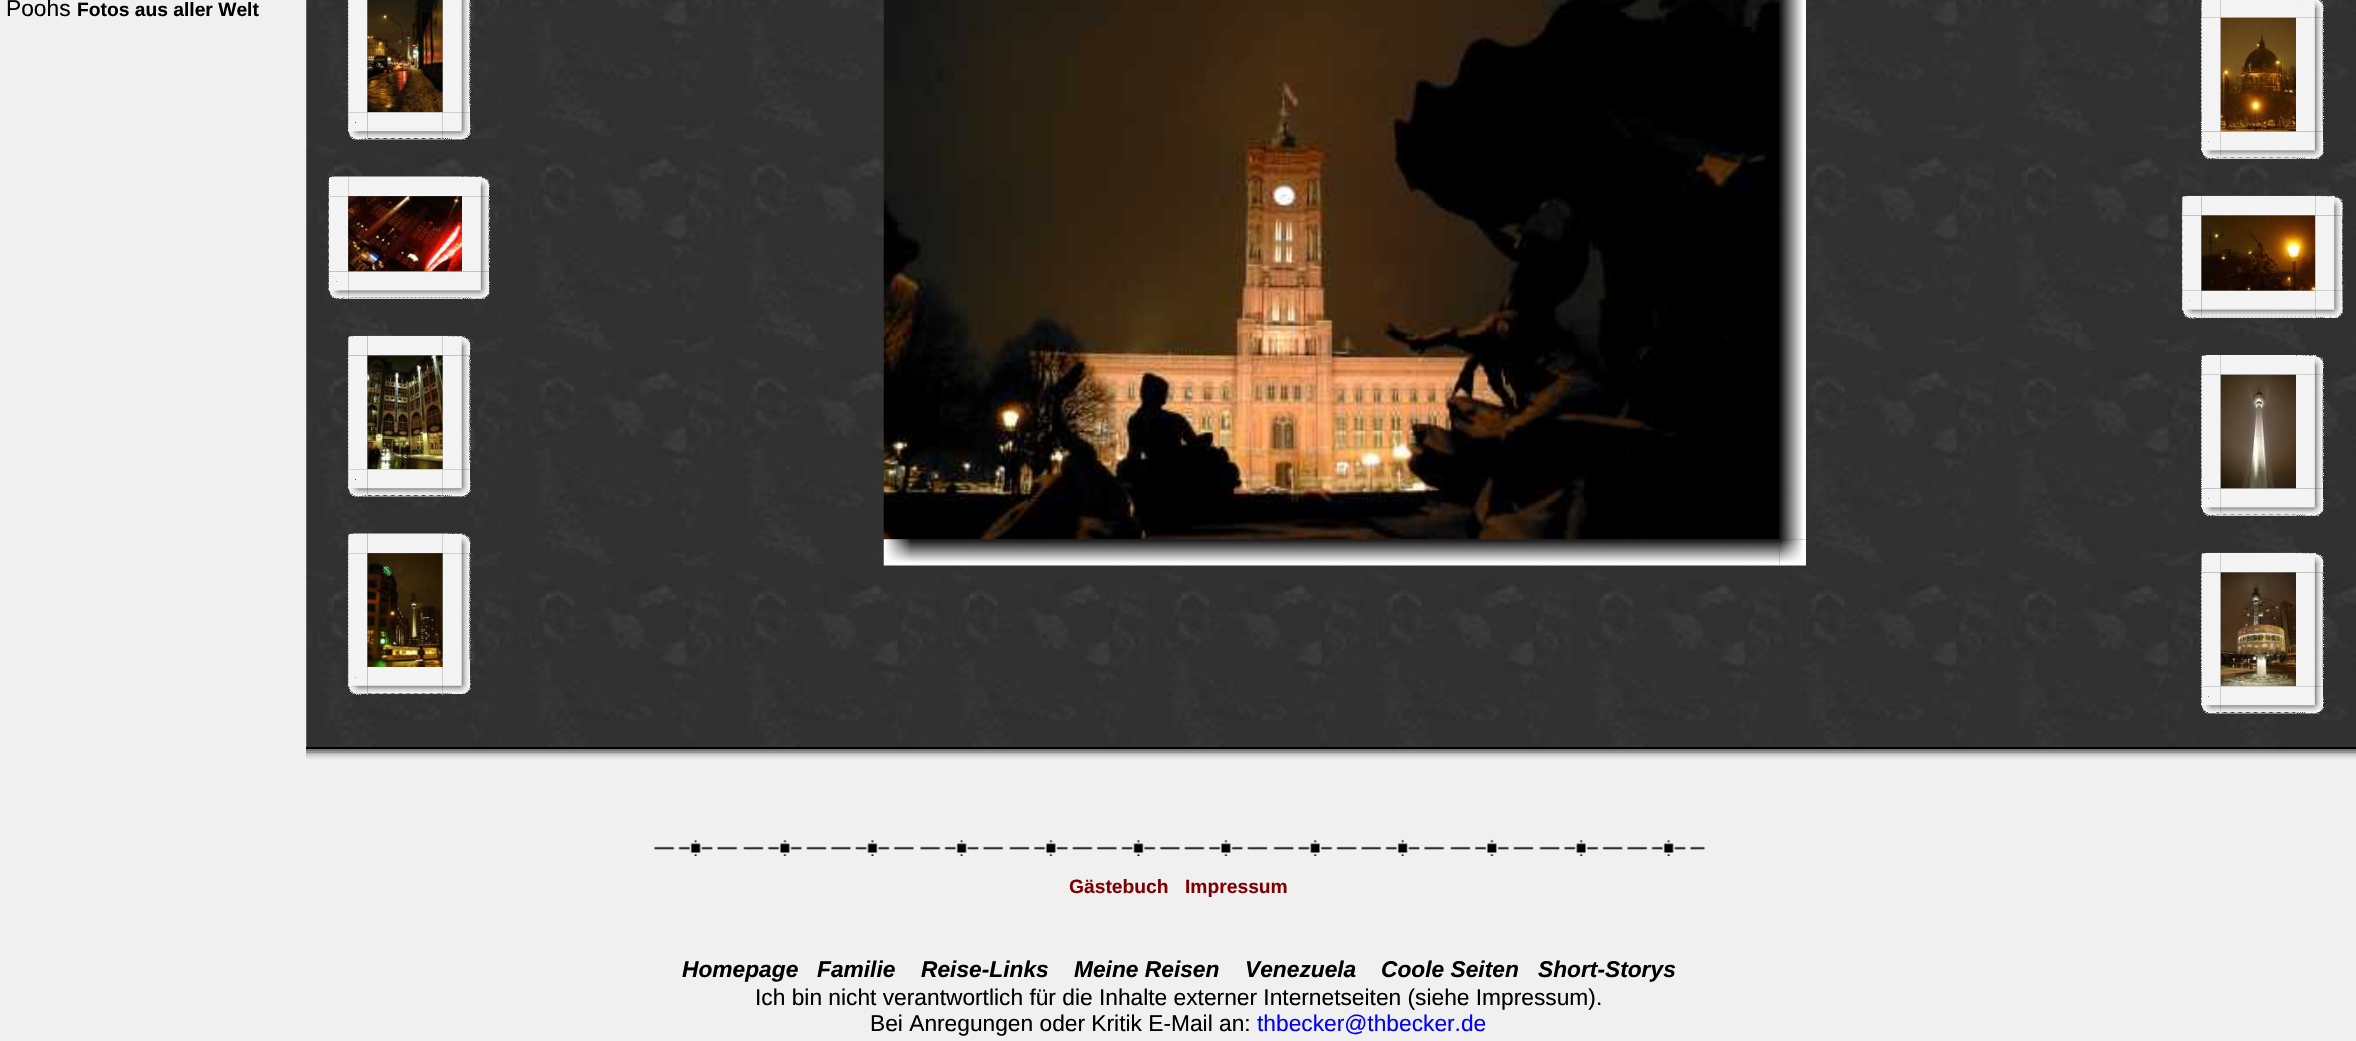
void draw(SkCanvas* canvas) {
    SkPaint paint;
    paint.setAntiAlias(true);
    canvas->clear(0xFFF0F0F0);
    SkFont font1(fontMgr->matchFamilyStyle("Liberation Sans", SkFontStyle::Normal()), 22.75f);
    font1.setSubpixel(true);
    paint.setColor(0xFF000000);
    canvas->drawString("Poohs", 6, 16, font1, paint);
    SkFont font2(fontMgr->matchFamilyStyle("Liberation Sans", SkFontStyle::Bold()), 19.25f);
    font2.setSubpixel(true);
    canvas->drawString("Fotos aus aller Welt", 77, 16, font2, paint);
    canvas->drawImageRect(SkImages::DeferredFromEncodedData(SkData::MakeFromFileName("img1.png")), SkRect::MakeXYWH(306, 0, 2050, 747), SkSamplingOptions());
    canvas->drawImageRect(SkImages::DeferredFromEncodedData(SkData::MakeFromFileName("img2.png")), SkRect::MakeXYWH(347, 0, 21, 113), SkSamplingOptions());
    canvas->drawImageRect(SkImages::DeferredFromEncodedData(SkData::MakeFromFileName("img3.png")), SkRect::MakeXYWH(367, 0, 76, 113), SkSamplingOptions());
    canvas->drawImageRect(SkImages::DeferredFromEncodedData(SkData::MakeFromFileName("img4.png")), SkRect::MakeXYWH(442, 0, 29, 113), SkSamplingOptions());
    canvas->drawImageRect(SkImages::DeferredFromEncodedData(SkData::MakeFromFileName("img5.png")), SkRect::MakeXYWH(347, 112, 21, 28), SkSamplingOptions());
    canvas->drawImageRect(SkImages::DeferredFromEncodedData(SkData::MakeFromFileName("img6.png")), SkRect::MakeXYWH(367, 112, 76, 28), SkSamplingOptions());
    canvas->drawImageRect(SkImages::DeferredFromEncodedData(SkData::MakeFromFileName("img7.png")), SkRect::MakeXYWH(442, 112, 29, 28), SkSamplingOptions());
    canvas->drawImageRect(SkImages::DeferredFromEncodedData(SkData::MakeFromFileName("img8.png")), SkRect::MakeXYWH(328, 176, 21, 21), SkSamplingOptions());
    canvas->drawImageRect(SkImages::DeferredFromEncodedData(SkData::MakeFromFileName("img9.png")), SkRect::MakeXYWH(348, 176, 114, 21), SkSamplingOptions());
    canvas->drawImageRect(SkImages::DeferredFromEncodedData(SkData::MakeFromFileName("img10.png")), SkRect::MakeXYWH(462, 176, 28, 21), SkSamplingOptions());
    canvas->drawImageRect(SkImages::DeferredFromEncodedData(SkData::MakeFromFileName("img11.png")), SkRect::MakeXYWH(328, 196, 21, 76), SkSamplingOptions());
    canvas->drawImageRect(SkImages::DeferredFromEncodedData(SkData::MakeFromFileName("img12.png")), SkRect::MakeXYWH(348, 196, 114, 76), SkSamplingOptions());
    canvas->drawImageRect(SkImages::DeferredFromEncodedData(SkData::MakeFromFileName("img13.png")), SkRect::MakeXYWH(462, 196, 28, 76), SkSamplingOptions());
    canvas->drawImageRect(SkImages::DeferredFromEncodedData(SkData::MakeFromFileName("img14.png")), SkRect::MakeXYWH(328, 271, 21, 29), SkSamplingOptions());
    canvas->drawImageRect(SkImages::DeferredFromEncodedData(SkData::MakeFromFileName("img15.png")), SkRect::MakeXYWH(348, 271, 114, 29), SkSamplingOptions());
    canvas->drawImageRect(SkImages::DeferredFromEncodedData(SkData::MakeFromFileName("img16.png")), SkRect::MakeXYWH(462, 271, 28, 28), SkSamplingOptions());
    canvas->drawImageRect(SkImages::DeferredFromEncodedData(SkData::MakeFromFileName("img17.png")), SkRect::MakeXYWH(347, 335, 21, 21), SkSamplingOptions());
    canvas->drawImageRect(SkImages::DeferredFromEncodedData(SkData::MakeFromFileName("img18.png")), SkRect::MakeXYWH(367, 335, 76, 21), SkSamplingOptions());
    canvas->drawImageRect(SkImages::DeferredFromEncodedData(SkData::MakeFromFileName("img19.png")), SkRect::MakeXYWH(442, 335, 29, 21), SkSamplingOptions());
    canvas->drawImageRect(SkImages::DeferredFromEncodedData(SkData::MakeFromFileName("img20.png")), SkRect::MakeXYWH(347, 355, 21, 115), SkSamplingOptions());
    canvas->drawImageRect(SkImages::DeferredFromEncodedData(SkData::MakeFromFileName("img21.png")), SkRect::MakeXYWH(367, 355, 76, 115), SkSamplingOptions());
    canvas->drawImageRect(SkImages::DeferredFromEncodedData(SkData::MakeFromFileName("img22.png")), SkRect::MakeXYWH(442, 355, 29, 115), SkSamplingOptions());
    canvas->drawImageRect(SkImages::DeferredFromEncodedData(SkData::MakeFromFileName("img23.png")), SkRect::MakeXYWH(347, 469, 21, 28), SkSamplingOptions());
    canvas->drawImageRect(SkImages::DeferredFromEncodedData(SkData::MakeFromFileName("img24.png")), SkRect::MakeXYWH(367, 469, 76, 28), SkSamplingOptions());
    canvas->drawImageRect(SkImages::DeferredFromEncodedData(SkData::MakeFromFileName("img25.png")), SkRect::MakeXYWH(442, 469, 29, 28), SkSamplingOptions());
    canvas->drawImageRect(SkImages::DeferredFromEncodedData(SkData::MakeFromFileName("img26.png")), SkRect::MakeXYWH(347, 533, 21, 21), SkSamplingOptions());
    canvas->drawImageRect(SkImages::DeferredFromEncodedData(SkData::MakeFromFileName("img27.png")), SkRect::MakeXYWH(367, 533, 76, 21), SkSamplingOptions());
    canvas->drawImageRect(SkImages::DeferredFromEncodedData(SkData::MakeFromFileName("img28.png")), SkRect::MakeXYWH(442, 533, 29, 21), SkSamplingOptions());
    canvas->drawImageRect(SkImages::DeferredFromEncodedData(SkData::MakeFromFileName("img29.png")), SkRect::MakeXYWH(347, 553, 21, 114), SkSamplingOptions());
    canvas->drawImageRect(SkImages::DeferredFromEncodedData(SkData::MakeFromFileName("img30.png")), SkRect::MakeXYWH(367, 553, 76, 114), SkSamplingOptions());
    canvas->drawImageRect(SkImages::DeferredFromEncodedData(SkData::MakeFromFileName("img31.png")), SkRect::MakeXYWH(442, 553, 29, 114), SkSamplingOptions());
    canvas->drawImageRect(SkImages::DeferredFromEncodedData(SkData::MakeFromFileName("img32.png")), SkRect::MakeXYWH(347, 667, 21, 28), SkSamplingOptions());
    canvas->drawImageRect(SkImages::DeferredFromEncodedData(SkData::MakeFromFileName("img33.png")), SkRect::MakeXYWH(367, 667, 76, 28), SkSamplingOptions());
    canvas->drawImageRect(SkImages::DeferredFromEncodedData(SkData::MakeFromFileName("img34.png")), SkRect::MakeXYWH(442, 667, 29, 27), SkSamplingOptions());
    canvas->drawImageRect(SkImages::DeferredFromEncodedData(SkData::MakeFromFileName("img35.png")), SkRect::MakeXYWH(883, 0, 897, 540), SkSamplingOptions());
    canvas->drawImageRect(SkImages::DeferredFromEncodedData(SkData::MakeFromFileName("img36.png")), SkRect::MakeXYWH(1779, 0, 27, 540), SkSamplingOptions());
    canvas->drawImageRect(SkImages::DeferredFromEncodedData(SkData::MakeFromFileName("img37.png")), SkRect::MakeXYWH(883, 539, 897, 27), SkSamplingOptions());
    canvas->drawImageRect(SkImages::DeferredFromEncodedData(SkData::MakeFromFileName("img38.png")), SkRect::MakeXYWH(1779, 539, 27, 27), SkSamplingOptions());
    canvas->drawImageRect(SkImages::DeferredFromEncodedData(SkData::MakeFromFileName("img39.png")), SkRect::MakeXYWH(2201, 0, 20, 18), SkSamplingOptions());
    canvas->drawImageRect(SkImages::DeferredFromEncodedData(SkData::MakeFromFileName("img40.png")), SkRect::MakeXYWH(2220, 0, 76, 18), SkSamplingOptions());
    canvas->drawImageRect(SkImages::DeferredFromEncodedData(SkData::MakeFromFileName("img41.png")), SkRect::MakeXYWH(2296, 0, 28, 18), SkSamplingOptions());
    canvas->drawImageRect(SkImages::DeferredFromEncodedData(SkData::MakeFromFileName("img42.png")), SkRect::MakeXYWH(2201, 17, 20, 115), SkSamplingOptions());
    canvas->drawImageRect(SkImages::DeferredFromEncodedData(SkData::MakeFromFileName("img43.png")), SkRect::MakeXYWH(2220, 17, 76, 115), SkSamplingOptions());
    canvas->drawImageRect(SkImages::DeferredFromEncodedData(SkData::MakeFromFileName("img44.png")), SkRect::MakeXYWH(2296, 17, 28, 115), SkSamplingOptions());
    canvas->drawImageRect(SkImages::DeferredFromEncodedData(SkData::MakeFromFileName("img45.png")), SkRect::MakeXYWH(2201, 131, 20, 29), SkSamplingOptions());
    canvas->drawImageRect(SkImages::DeferredFromEncodedData(SkData::MakeFromFileName("img46.png")), SkRect::MakeXYWH(2220, 131, 76, 29), SkSamplingOptions());
    canvas->drawImageRect(SkImages::DeferredFromEncodedData(SkData::MakeFromFileName("img47.png")), SkRect::MakeXYWH(2296, 131, 28, 28), SkSamplingOptions());
    canvas->drawImageRect(SkImages::DeferredFromEncodedData(SkData::MakeFromFileName("img48.png")), SkRect::MakeXYWH(2181, 195, 21, 21), SkSamplingOptions());
    canvas->drawImageRect(SkImages::DeferredFromEncodedData(SkData::MakeFromFileName("img49.png")), SkRect::MakeXYWH(2201, 195, 115, 21), SkSamplingOptions());
    canvas->drawImageRect(SkImages::DeferredFromEncodedData(SkData::MakeFromFileName("img50.png")), SkRect::MakeXYWH(2315, 195, 28, 21), SkSamplingOptions());
    canvas->drawImageRect(SkImages::DeferredFromEncodedData(SkData::MakeFromFileName("img51.png")), SkRect::MakeXYWH(2181, 215, 21, 76), SkSamplingOptions());
    canvas->drawImageRect(SkImages::DeferredFromEncodedData(SkData::MakeFromFileName("img52.png")), SkRect::MakeXYWH(2201, 215, 115, 76), SkSamplingOptions());
    canvas->drawImageRect(SkImages::DeferredFromEncodedData(SkData::MakeFromFileName("img53.png")), SkRect::MakeXYWH(2315, 215, 28, 76), SkSamplingOptions());
    canvas->drawImageRect(SkImages::DeferredFromEncodedData(SkData::MakeFromFileName("img54.png")), SkRect::MakeXYWH(2181, 290, 21, 29), SkSamplingOptions());
    canvas->drawImageRect(SkImages::DeferredFromEncodedData(SkData::MakeFromFileName("img55.png")), SkRect::MakeXYWH(2201, 290, 115, 29), SkSamplingOptions());
    canvas->drawImageRect(SkImages::DeferredFromEncodedData(SkData::MakeFromFileName("img56.png")), SkRect::MakeXYWH(2315, 290, 28, 28), SkSamplingOptions());
    canvas->drawImageRect(SkImages::DeferredFromEncodedData(SkData::MakeFromFileName("img57.png")), SkRect::MakeXYWH(2201, 355, 20, 20), SkSamplingOptions());
    canvas->drawImageRect(SkImages::DeferredFromEncodedData(SkData::MakeFromFileName("img58.png")), SkRect::MakeXYWH(2220, 355, 76, 20), SkSamplingOptions());
    canvas->drawImageRect(SkImages::DeferredFromEncodedData(SkData::MakeFromFileName("img59.png")), SkRect::MakeXYWH(2296, 355, 28, 20), SkSamplingOptions());
    canvas->drawImageRect(SkImages::DeferredFromEncodedData(SkData::MakeFromFileName("img60.png")), SkRect::MakeXYWH(2201, 374, 20, 115), SkSamplingOptions());
    canvas->drawImageRect(SkImages::DeferredFromEncodedData(SkData::MakeFromFileName("img61.png")), SkRect::MakeXYWH(2220, 374, 76, 115), SkSamplingOptions());
    canvas->drawImageRect(SkImages::DeferredFromEncodedData(SkData::MakeFromFileName("img62.png")), SkRect::MakeXYWH(2296, 374, 28, 115), SkSamplingOptions());
    canvas->drawImageRect(SkImages::DeferredFromEncodedData(SkData::MakeFromFileName("img63.png")), SkRect::MakeXYWH(2201, 488, 20, 29), SkSamplingOptions());
    canvas->drawImageRect(SkImages::DeferredFromEncodedData(SkData::MakeFromFileName("img64.png")), SkRect::MakeXYWH(2220, 488, 76, 29), SkSamplingOptions());
    canvas->drawImageRect(SkImages::DeferredFromEncodedData(SkData::MakeFromFileName("img65.png")), SkRect::MakeXYWH(2296, 488, 28, 28), SkSamplingOptions());
    canvas->drawImageRect(SkImages::DeferredFromEncodedData(SkData::MakeFromFileName("img66.png")), SkRect::MakeXYWH(2201, 552, 20, 21), SkSamplingOptions());
    canvas->drawImageRect(SkImages::DeferredFromEncodedData(SkData::MakeFromFileName("img67.png")), SkRect::MakeXYWH(2220, 552, 76, 21), SkSamplingOptions());
    canvas->drawImageRect(SkImages::DeferredFromEncodedData(SkData::MakeFromFileName("img68.png")), SkRect::MakeXYWH(2296, 552, 28, 21), SkSamplingOptions());
    canvas->drawImageRect(SkImages::DeferredFromEncodedData(SkData::MakeFromFileName("img69.png")), SkRect::MakeXYWH(2201, 572, 20, 115), SkSamplingOptions());
    canvas->drawImageRect(SkImages::DeferredFromEncodedData(SkData::MakeFromFileName("img70.png")), SkRect::MakeXYWH(2220, 572, 76, 115), SkSamplingOptions());
    canvas->drawImageRect(SkImages::DeferredFromEncodedData(SkData::MakeFromFileName("img71.png")), SkRect::MakeXYWH(2296, 572, 28, 115), SkSamplingOptions());
    canvas->drawImageRect(SkImages::DeferredFromEncodedData(SkData::MakeFromFileName("img72.png")), SkRect::MakeXYWH(2201, 686, 20, 28), SkSamplingOptions());
    canvas->drawImageRect(SkImages::DeferredFromEncodedData(SkData::MakeFromFileName("img73.png")), SkRect::MakeXYWH(2220, 686, 76, 28), SkSamplingOptions());
    canvas->drawImageRect(SkImages::DeferredFromEncodedData(SkData::MakeFromFileName("img74.png")), SkRect::MakeXYWH(2296, 686, 28, 28), SkSamplingOptions());
    canvas->drawRect(SkRect::MakeXYWH(306, 747, 2050, 2), paint);
    paint.setColor(0xFF787878);
    canvas->drawRect(SkRect::MakeXYWH(306, 749, 2050, 2), paint);
    paint.setColor(0xFF969696);
    canvas->drawRect(SkRect::MakeXYWH(306, 751, 2050, 2), paint);
    paint.setColor(0xFFB4B4B4);
    canvas->drawRect(SkRect::MakeXYWH(306, 753, 2050, 1), paint);
    paint.setColor(0xFFCCCCCC);
    canvas->drawRect(SkRect::MakeXYWH(306, 754, 2050, 2), paint);
    paint.setColor(0xFFDEDEDE);
    canvas->drawRect(SkRect::MakeXYWH(306, 756, 2050, 2), paint);
    paint.setColor(0xFFEBEBEB);
    canvas->drawRect(SkRect::MakeXYWH(306, 758, 2050, 2), paint);
    canvas->drawImageRect(SkImages::DeferredFromEncodedData(SkData::MakeFromFileName("img75.png")), SkRect::MakeXYWH(654, 839, 1051, 17), SkSamplingOptions());
    paint.setColor(0xFF800000);
    canvas->drawString("Gästebuch", 1069, 893, font2, paint);
    canvas->drawString("Impressum", 1185, 893, font2, paint);
    SkFont font3(fontMgr->matchFamilyStyle("Liberation Sans", SkFontStyle::BoldItalic()), 22.75f);
    font3.setSubpixel(true);
    paint.setColor(0xFF000000);
    canvas->drawString("Homepage", 682, 977, font3, paint);
    canvas->drawString("Familie", 817, 977, font3, paint);
    canvas->drawString("Reise-Links", 921, 977, font3, paint);
    canvas->drawString("Meine Reisen", 1074, 977, font3, paint);
    canvas->drawString("Venezuela", 1245, 977, font3, paint);
    canvas->drawString("Coole Seiten", 1381, 977, font3, paint);
    canvas->drawString("Short-Storys", 1538, 977, font3, paint);
    canvas->drawString("Ich bin nicht verantwortlich für die Inhalte externer Internetseiten (siehe Impressum).", 755, 1005, font1, paint);
    canvas->drawString("Bei Anregungen oder Kritik E-Mail an:", 870, 1031, font1, paint);
    paint.setColor(0xFF0000FF);
    canvas->drawString("thbecker@thbecker.de", 1257, 1031, font1, paint);
}
